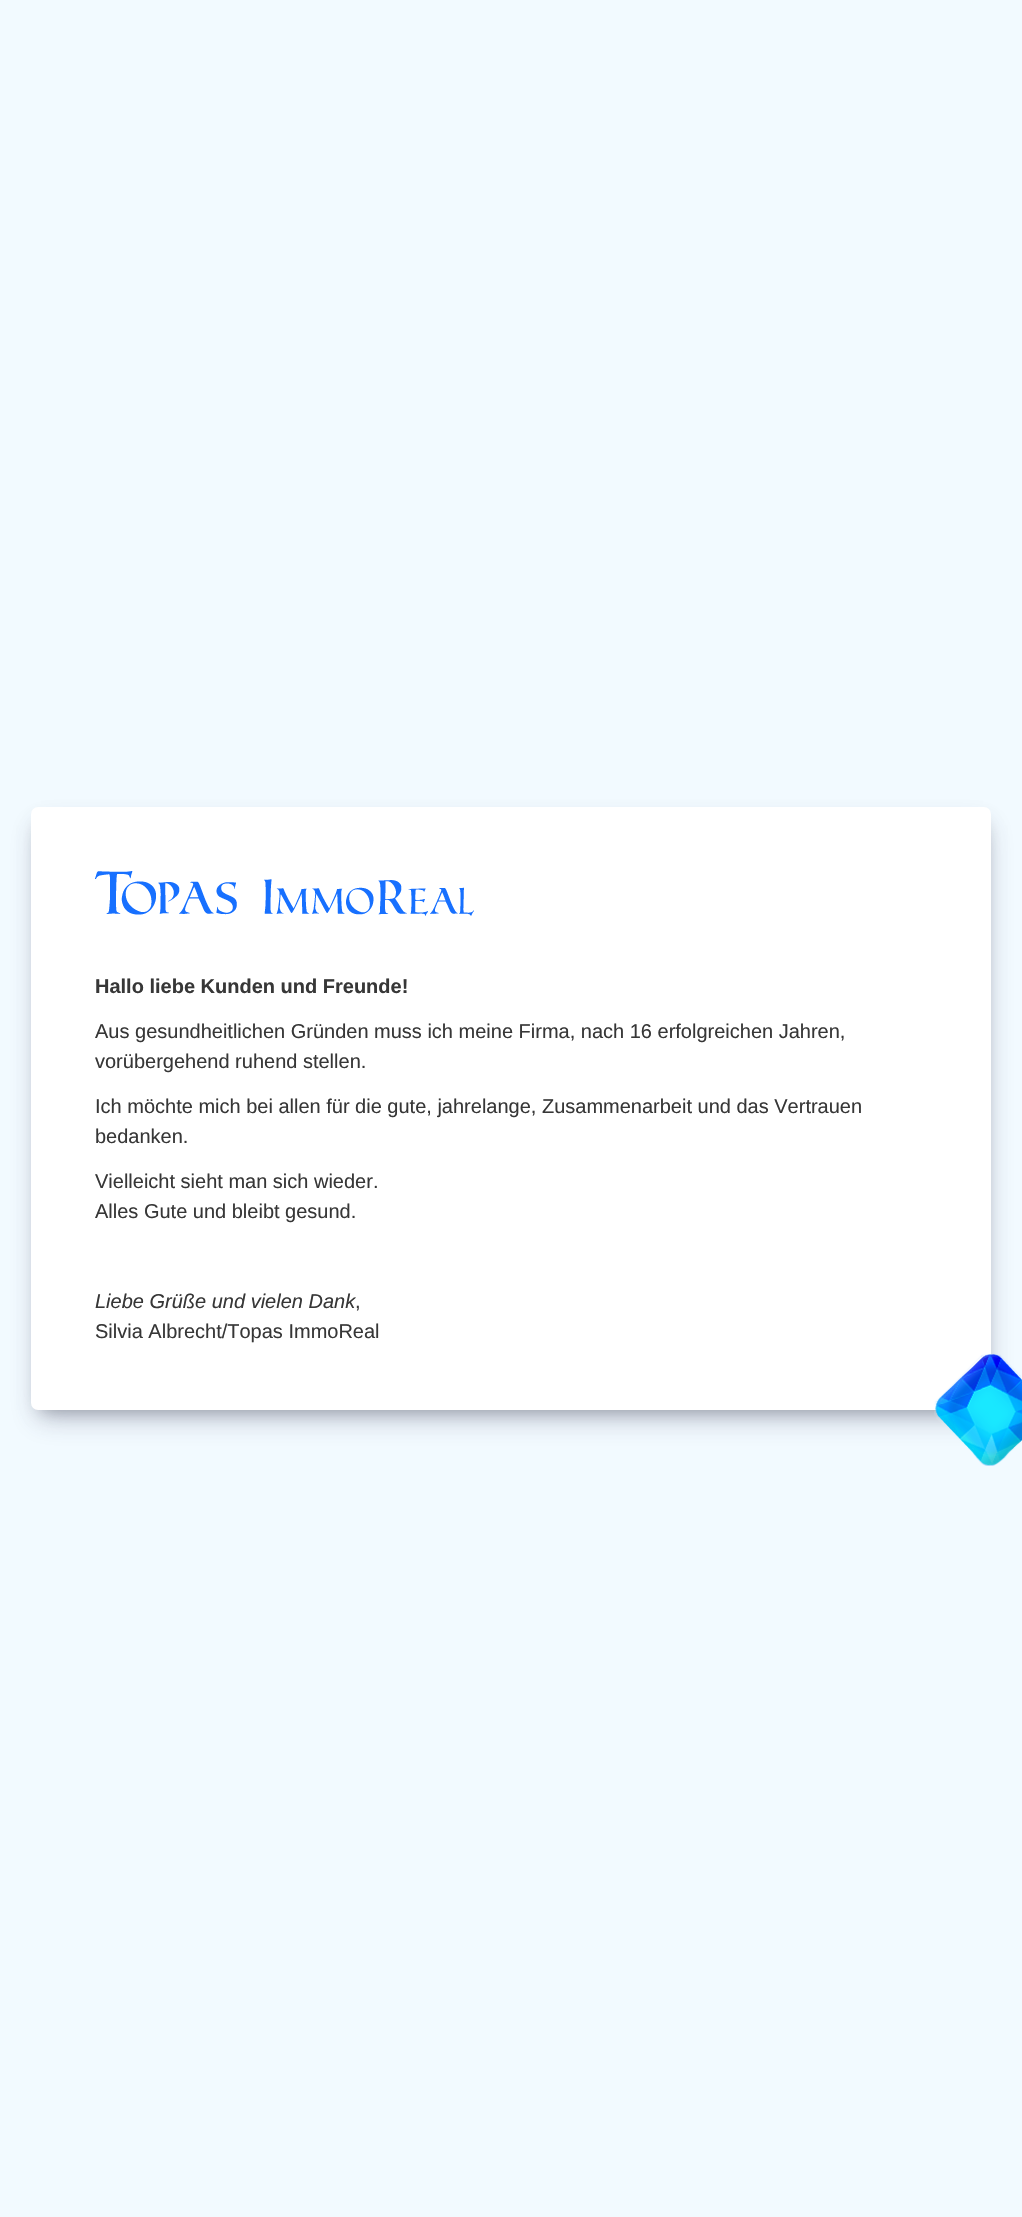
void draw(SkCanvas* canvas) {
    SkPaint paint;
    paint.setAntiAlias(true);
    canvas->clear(0xFFF2FAFF);
    paint.setColor(0x4F000000);
    paint.setMaskFilter(SkMaskFilter::MakeBlur(kNormal_SkBlurStyle, 8.5f));
    canvas->drawRect(SkRect::MakeXYWH(41, 825, 942, 585), paint);
    paint.setMaskFilter(nullptr);
    paint.setColor(0x4232325D);
    paint.setMaskFilter(SkMaskFilter::MakeBlur(kNormal_SkBlurStyle, 14));
    canvas->drawRoundRect(SkRect::MakeXYWH(38, 827, 948, 591), 1, 1, paint);
    paint.setMaskFilter(nullptr);
    paint.setColor(0xFFFFFFFF);
    canvas->drawRoundRect(SkRect::MakeXYWH(31, 807, 960, 603), 7, 7, paint);
    canvas->drawImageRect(SkImages::DeferredFromEncodedData(SkData::MakeFromFileName("img1.png")), SkRect::MakeXYWH(95, 871, 379, 45), SkSamplingOptions());
    SkFont font1(fontMgr->matchFamilyStyle("Liberation Sans", SkFontStyle::Bold()), 20);
    font1.setSubpixel(true);
    paint.setColor(0xFF373737);
    canvas->drawString("Hallo liebe Kunden und Freunde!", 95, 993, font1, paint);
    SkFont font2(fontMgr->matchFamilyStyle("Liberation Sans", SkFontStyle::Normal()), 20);
    font2.setSubpixel(true);
    canvas->drawString("Aus gesundheitlichen Gründen muss ich meine Firma, nach 16 erfolgreichen Jahren,", 95, 1038, font2, paint);
    canvas->drawString("vorübergehend ruhend stellen.", 95, 1068, font2, paint);
    canvas->drawString("Ich möchte mich bei allen für die gute, jahrelange, Zusammenarbeit und das Vertrauen", 95, 1113, font2, paint);
    canvas->drawString("bedanken.", 95, 1143, font2, paint);
    canvas->drawString("Vielleicht sieht man sich wieder.", 95, 1188, font2, paint);
    canvas->drawString("Alles Gute und bleibt gesund.", 95, 1218, font2, paint);
    SkFont font3(fontMgr->matchFamilyStyle("Liberation Sans", SkFontStyle::Italic()), 20);
    font3.setSubpixel(true);
    canvas->drawString("Liebe Grüße und vielen Dank", 95, 1308, font3, paint);
    canvas->drawString(",", 355, 1308, font2, paint);
    canvas->drawString("Silvia Albrecht/Topas ImmoReal", 95, 1338, font2, paint);
    canvas->drawImageRect(SkImages::DeferredFromEncodedData(SkData::MakeFromFileName("img2.png")), SkRect::MakeXYWH(934, 1354, 88, 112), SkSamplingOptions());
}
